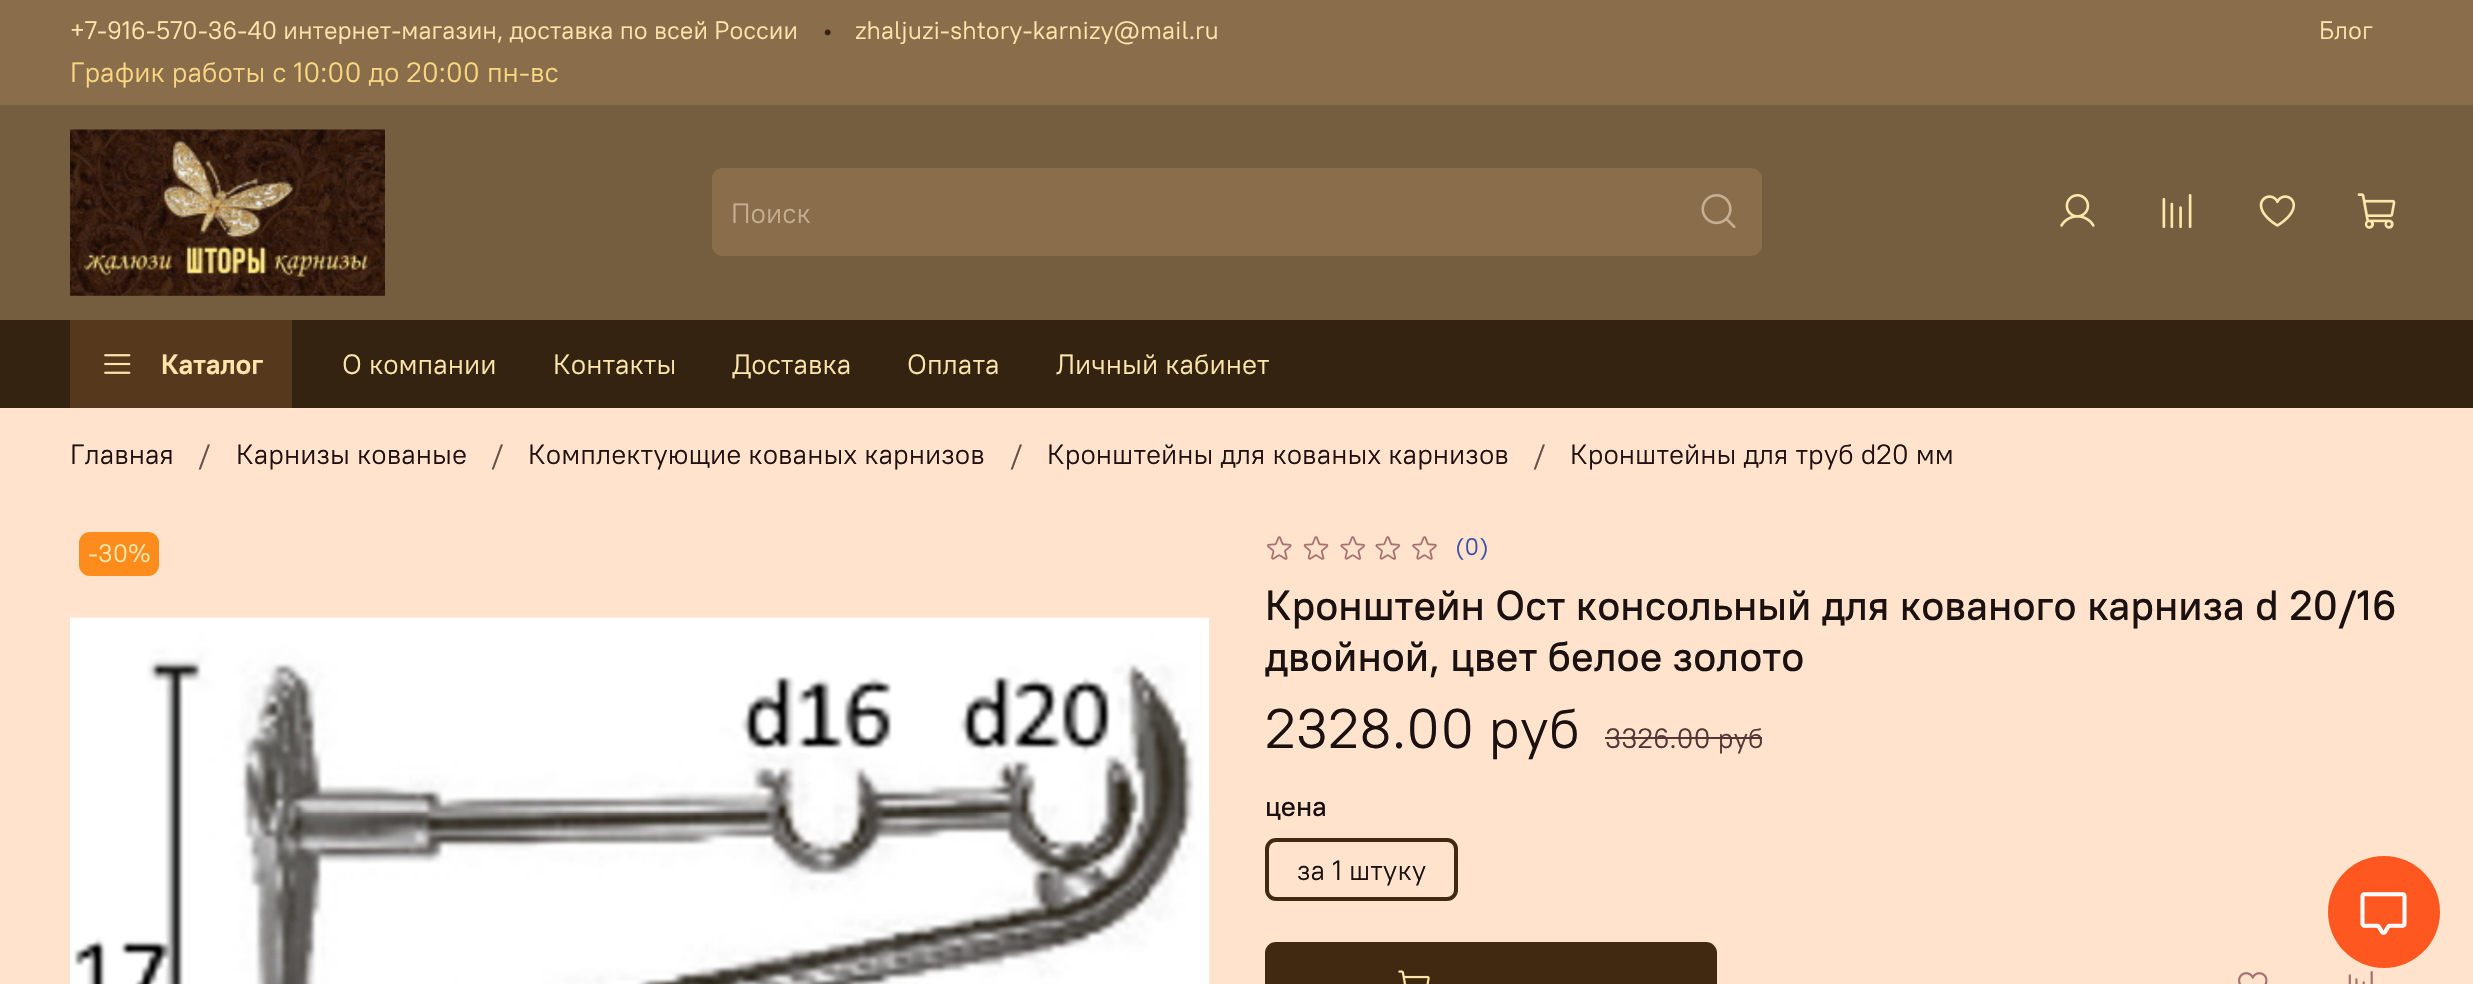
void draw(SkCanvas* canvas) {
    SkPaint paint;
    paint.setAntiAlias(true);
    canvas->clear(0xFFFFE3CC);
    paint.setColor(0xFF8A6D4A);
    canvas->drawRect(SkRect::MakeXYWH(0, 0, 2473, 105), paint);
    SkFont font1(fontMgr->matchFamilyStyle("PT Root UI", SkFontStyle::Normal()), 25.2f);
    font1.setSubpixel(true);
    paint.setColor(0xFFFCE6AC);
    canvas->drawString("+7-916-570-36-40 интернет-магазин, доставка по всей России", 70, 39, font1, paint);
    paint.setColor(0xFF352312);
    canvas->drawString("•", 822, 39, font1, paint);
    paint.setColor(0xFFFCE6AC);
    canvas->drawString("zhaljuzi-shtory-karnizy@mail.ru", 855, 39, font1, paint);
    canvas->drawString("Блог", 2319, 39, font1, paint);
    SkFont font2(fontMgr->matchFamilyStyle("PT Root UI", SkFontStyle::Normal()), 28);
    font2.setSubpixel(true);
    paint.setColor(0xFFFAD882);
    canvas->drawString("График работы с 10:00 до 20:00 пн-вс", 70, 82, font2, paint);
    paint.setColor(0xFF755D3F);
    canvas->drawRect(SkRect::MakeXYWH(0, 105, 2473, 215), paint);
    canvas->drawImageRect(SkImages::DeferredFromEncodedData(SkData::MakeFromFileName("img1.png")), SkRect::MakeXYWH(70, 129, 315, 167), SkSamplingOptions());
    paint.setColor(0xFF8A6D4A);
    canvas->drawPath(SkPathBuilder().moveTo(723, 168).lineTo(1675, 168).lineTo(1675, 256).lineTo(723, 256).cubicTo(717, 256, 712, 251, 712, 245).lineTo(712, 179).cubicTo(712, 173, 717, 168, 723, 168).close().detach(), paint);
    canvas->drawPath(SkPathBuilder(SkPathFillType::kEvenOdd).moveTo(723, 168).lineTo(1675, 168).lineTo(1675, 256).lineTo(723, 256).cubicTo(717, 256, 712, 251, 712, 245).lineTo(712, 178).cubicTo(712, 173, 717, 168, 723, 168).close().moveTo(723, 170).lineTo(1675, 170).lineTo(1675, 254).lineTo(723, 254).cubicTo(718, 254, 714, 250, 714, 245).lineTo(714, 178).cubicTo(714, 174, 718, 170, 723, 170).close().detach(), paint);
    paint.setColor(0xFFC5AF93);
    canvas->drawString("Поиск", 731, 223, font2, paint);
    paint.setColor(0xFF8A6D4A);
    canvas->drawPath(SkPathBuilder().moveTo(1676, 169).lineTo(1751, 169).cubicTo(1756.5f, 169, 1761, 173.5f, 1761, 179).lineTo(1761, 245).cubicTo(1761, 250.5f, 1756.5f, 255, 1751, 255).lineTo(1676, 255).close().detach(), paint);
    paint.setStyle(SkPaint::kStroke_Style);
    paint.setStrokeWidth(2);
    canvas->drawPath(SkPathBuilder().moveTo(1676, 169).lineTo(1751, 169).cubicTo(1756.5f, 169, 1761, 173.5f, 1761, 179).lineTo(1761, 245).cubicTo(1761, 250.5f, 1756.5f, 255, 1751, 255).lineTo(1676, 255).close().detach(), paint);
    canvas->drawImageRect(SkImages::DeferredFromEncodedData(SkData::MakeFromFileName("img2.png")), SkRect::MakeXYWH(1701, 194, 35, 34), SkSamplingOptions());
    canvas->drawImageRect(SkImages::DeferredFromEncodedData(SkData::MakeFromFileName("img3.png")), SkRect::MakeXYWH(2060, 194, 35, 33), SkSamplingOptions());
    canvas->drawImageRect(SkImages::DeferredFromEncodedData(SkData::MakeFromFileName("img4.png")), SkRect::MakeXYWH(2162, 194, 30, 35), SkSamplingOptions());
    canvas->drawImageRect(SkImages::DeferredFromEncodedData(SkData::MakeFromFileName("img5.png")), SkRect::MakeXYWH(2259, 195, 36, 32), SkSamplingOptions());
    canvas->drawImageRect(SkImages::DeferredFromEncodedData(SkData::MakeFromFileName("img6.png")), SkRect::MakeXYWH(2357, 193, 39, 36), SkSamplingOptions());
    paint.setStyle(SkPaint::kFill_Style);
    paint.setColor(0xFF352312);
    canvas->drawRect(SkRect::MakeXYWH(0, 320, 2473, 88), paint);
    paint.setColor(0xFF56391D);
    canvas->drawRect(SkRect::MakeXYWH(70, 320, 222, 88), paint);
    canvas->drawImageRect(SkImages::DeferredFromEncodedData(SkData::MakeFromFileName("img7.png")), SkRect::MakeXYWH(104, 354, 27, 20), SkSamplingOptions());
    SkFont font3(fontMgr->matchFamilyStyle("PT Root UI", SkFontStyle::Bold()), 28);
    font3.setSubpixel(true);
    paint.setColor(0xFFFCE6AC);
    canvas->drawString("Каталог", 161, 374, font3, paint);
    canvas->drawString("О компании", 342, 374, font2, paint);
    canvas->drawString("Контакты", 553, 374, font2, paint);
    canvas->drawString("Доставка", 732, 374, font2, paint);
    canvas->drawString("Оплата", 907, 374, font2, paint);
    canvas->drawString("Личный кабинет", 1056, 374, font2, paint);
    paint.setColor(0xFF220F0F);
    canvas->drawString("Главная", 70, 464, font2, paint);
    paint.setColor(0xFF644F48);
    canvas->drawString("/", 198, 464, font2, paint);
    paint.setColor(0xFF220F0F);
    canvas->drawString("Карнизы кованые", 236, 464, font2, paint);
    paint.setColor(0xFF644F48);
    canvas->drawString("/", 491, 464, font2, paint);
    paint.setColor(0xFF220F0F);
    canvas->drawString("Комплектующие кованых карнизов", 528, 464, font2, paint);
    paint.setColor(0xFF644F48);
    canvas->drawString("/", 1010, 464, font2, paint);
    paint.setColor(0xFF220F0F);
    canvas->drawString("Кронштейны для кованых карнизов", 1047, 464, font2, paint);
    paint.setColor(0xFF644F48);
    canvas->drawString("/", 1533, 464, font2, paint);
    paint.setColor(0xFF220F0F);
    canvas->drawString("Кронштейны для труб d20 мм", 1570, 464, font2, paint);
    paint.setColor(0xFFFD8C1C);
    canvas->drawRoundRect(SkRect::MakeXYWH(79, 532, 80, 44), 11, 11, paint);
    paint.setColor(0xFFFCE6AC);
    canvas->drawString("-30%", 88, 562, font1, paint);
    canvas->drawImageRect(SkImages::DeferredFromEncodedData(SkData::MakeFromFileName("img8.png")), SkRect::MakeXYWH(70, 617, 1140, 367), SkSamplingOptions());
    canvas->drawImageRect(SkImages::DeferredFromEncodedData(SkData::MakeFromFileName("img9.png")), SkRect::MakeXYWH(1267, 536, 25, 24), SkSamplingOptions());
    canvas->drawImageRect(SkImages::DeferredFromEncodedData(SkData::MakeFromFileName("img10.png")), SkRect::MakeXYWH(1303, 536, 26, 24), SkSamplingOptions());
    canvas->drawImageRect(SkImages::DeferredFromEncodedData(SkData::MakeFromFileName("img11.png")), SkRect::MakeXYWH(1340, 536, 25, 24), SkSamplingOptions());
    canvas->drawImageRect(SkImages::DeferredFromEncodedData(SkData::MakeFromFileName("img11.png")), SkRect::MakeXYWH(1375, 536, 25, 24), SkSamplingOptions());
    canvas->drawImageRect(SkImages::DeferredFromEncodedData(SkData::MakeFromFileName("img12.png")), SkRect::MakeXYWH(1412, 536, 25, 24), SkSamplingOptions());
    SkFont font4(fontMgr->matchFamilyStyle("PT Root UI", SkFontStyle::Normal()), 24);
    font4.setSubpixel(true);
    paint.setColor(0xFF394EA8);
    canvas->drawString("(0)", 1455, 555, font4, paint);
    SkFont font5(fontMgr->matchFamilyStyle("PT Root UI", SkFontStyle(500, SkFontStyle::kNormal_Width, SkFontStyle::kUpright_Slant)), 42);
    font5.setSubpixel(true);
    paint.setColor(0xFF1B1111);
    canvas->drawString("Кронштейн Ост консольный для кованого карниза d 20/16", 1265, 620, font5, paint);
    canvas->drawString("двойной, цвет белое золото", 1265, 671, font5, paint);
    SkFont font6(fontMgr->matchFamilyStyle("PT Root UI", SkFontStyle::Normal()), 56);
    font6.setSubpixel(true);
    canvas->drawString("2328.00 руб", 1265, 748, font6, paint);
    paint.setColor(0xFF553535);
    canvas->drawString("3326.00 руб", 1605, 748, font2, paint);
    canvas->drawRect(SkRect::MakeXYWH(1605, 737, 157, 2), paint);
    SkFont font7(fontMgr->matchFamilyStyle("PT Root UI", SkFontStyle(500, SkFontStyle::kNormal_Width, SkFontStyle::kUpright_Slant)), 28);
    font7.setSubpixel(true);
    paint.setColor(0xFF1B1111);
    canvas->drawString("цена", 1265, 816, font7, paint);
    paint.setStyle(SkPaint::kStroke_Style);
    paint.setStrokeWidth(4);
    paint.setColor(0xFF412911);
    canvas->drawRoundRect(SkRect::MakeXYWH(1267, 840, 189, 59), 9, 9, paint);
    paint.setStyle(SkPaint::kFill_Style);
    paint.setColor(0xFF1B1111);
    canvas->drawString("за 1 штуку", 1297, 880, font2, paint);
    paint.setColor(0xFF412911);
    canvas->drawRoundRect(SkRect::MakeXYWH(1265, 942, 452, 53), 11, 11, paint);
    canvas->drawImageRect(SkImages::DeferredFromEncodedData(SkData::MakeFromFileName("img13.png")), SkRect::MakeXYWH(1398, 970, 32, 14), SkSamplingOptions());
    canvas->drawImageRect(SkImages::DeferredFromEncodedData(SkData::MakeFromFileName("img14.png")), SkRect::MakeXYWH(2238, 972, 30, 12), SkSamplingOptions());
    canvas->drawImageRect(SkImages::DeferredFromEncodedData(SkData::MakeFromFileName("img15.png")), SkRect::MakeXYWH(2348, 971, 25, 13), SkSamplingOptions());
    paint.setColor(0xFFFF5720);
    canvas->drawCircle(2384, 912, 56, paint);
    canvas->drawImageRect(SkImages::DeferredFromEncodedData(SkData::MakeFromFileName("img16.png")), SkRect::MakeXYWH(2360, 892, 47, 43), SkSamplingOptions());
}
